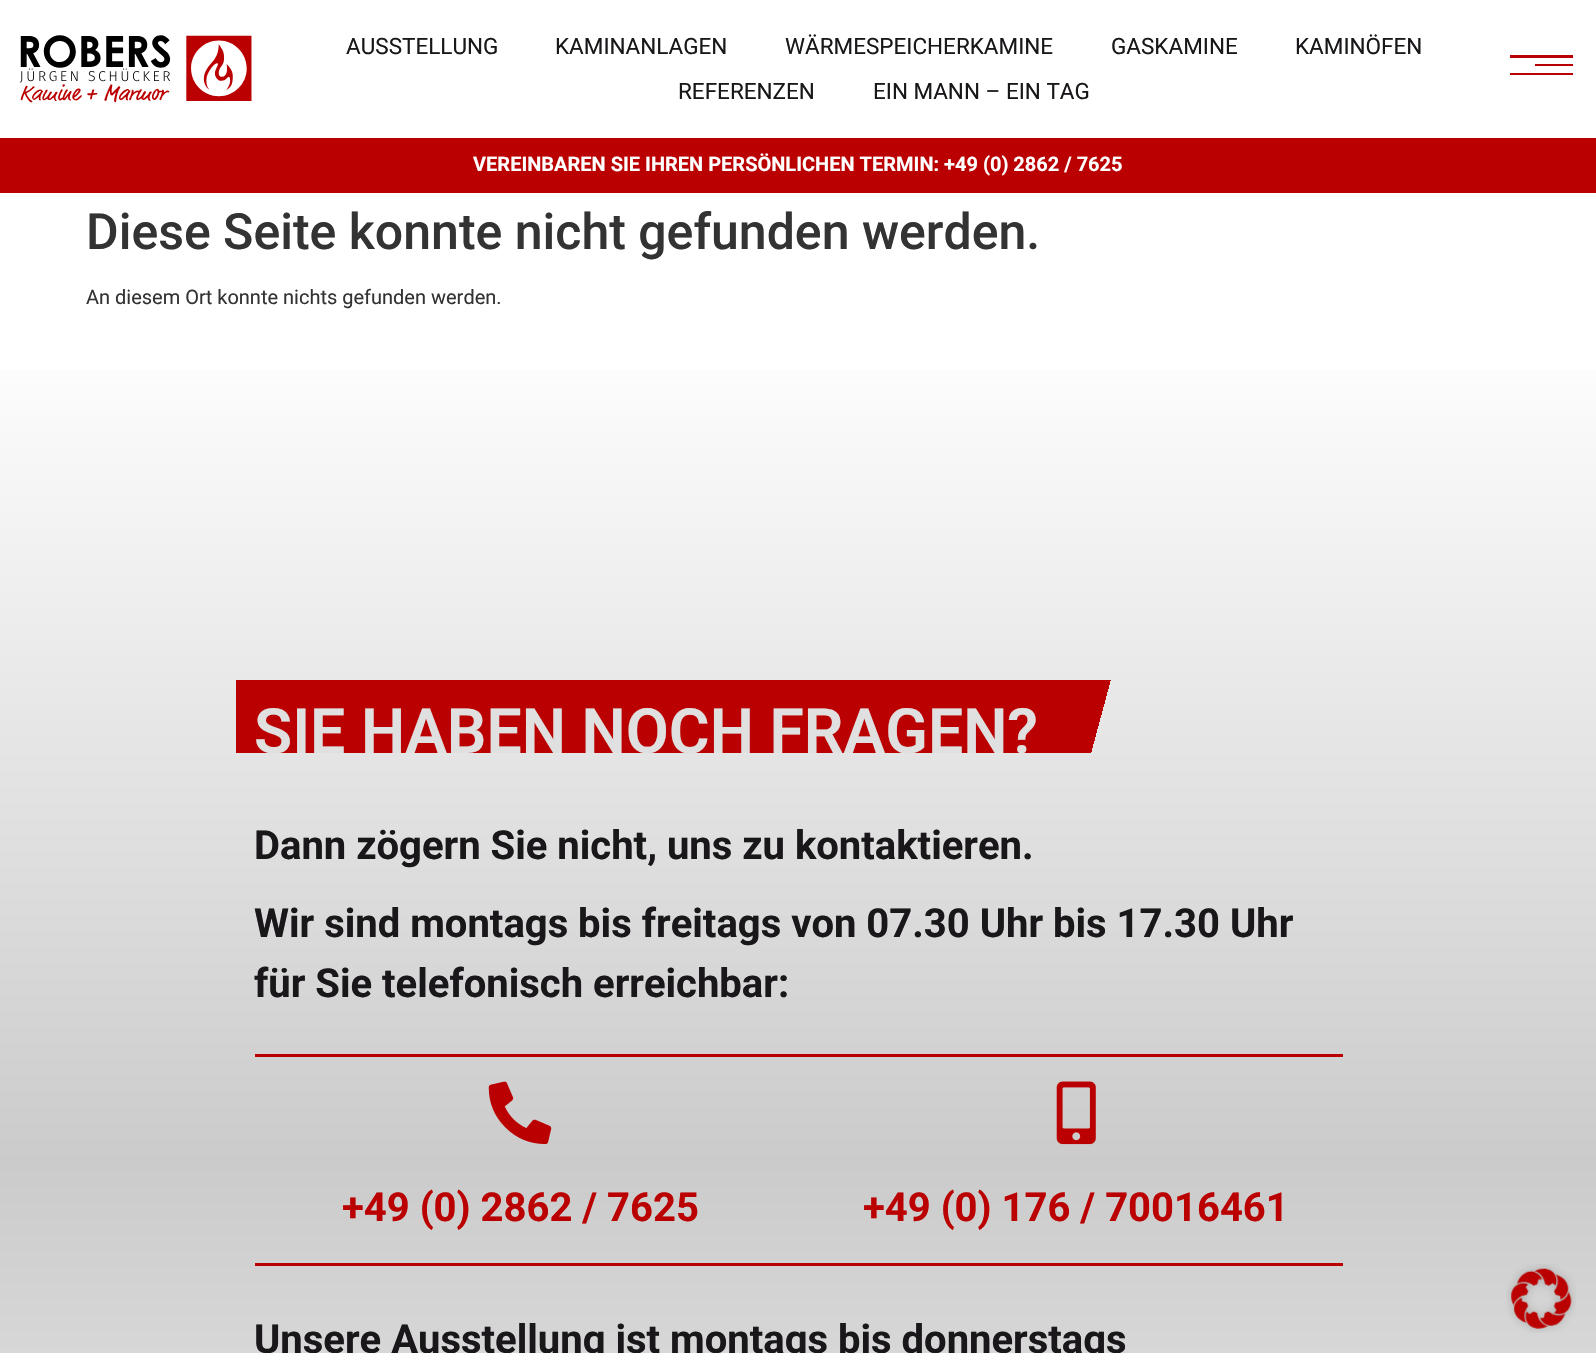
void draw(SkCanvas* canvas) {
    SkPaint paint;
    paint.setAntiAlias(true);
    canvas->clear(0xFFFFFFFF);
    canvas->drawImageRect(SkImages::DeferredFromEncodedData(SkData::MakeFromFileName("img1.png")), SkRect::MakeXYWH(19, 35, 233, 68), SkSamplingOptions());
    SkFont font1(fontMgr->matchFamilyStyle("Roboto", SkFontStyle::Normal()), 22.5f);
    font1.setSubpixel(true);
    paint.setColor(0xFF1A171B);
    canvas->drawString("AUSSTELLUNG", 346, 54, font1, paint);
    canvas->drawString("KAMINANLAGEN", 555, 54, font1, paint);
    canvas->drawString("WÄRMESPEICHERKAMINE", 785, 54, font1, paint);
    canvas->drawString("GASKAMINE", 1111, 54, font1, paint);
    canvas->drawString("KAMINÖFEN", 1295, 54, font1, paint);
    canvas->drawString("REFERENZEN", 678, 99, font1, paint);
    canvas->drawString("EIN MANN – EIN TAG", 873, 99, font1, paint);
    paint.setColor(0xFFBA0000);
    canvas->drawRect(SkRect::MakeXYWH(1510, 55, 63, 3), paint);
    canvas->drawRect(SkRect::MakeXYWH(1535, 64, 38, 2), paint);
    canvas->drawRect(SkRect::MakeXYWH(1510, 73, 63, 2), paint);
    canvas->drawRect(SkRect::MakeXYWH(0, 138, 1596, 55), paint);
    SkFont font2(fontMgr->matchFamilyStyle("Roboto", SkFontStyle::Bold()), 20);
    font2.setSubpixel(true);
    paint.setColor(0xFFFFFFFF);
    canvas->drawString("VEREINBAREN SIE IHREN PERSÖNLICHEN TERMIN: +49 (0) 2862 / 7625", 473, 171, font2, paint);
    SkFont font3(fontMgr->matchFamilyStyle("Roboto", SkFontStyle(500, SkFontStyle::kNormal_Width, SkFontStyle::kUpright_Slant)), 50);
    font3.setSubpixel(true);
    paint.setColor(0xFF333333);
    canvas->drawString("Diese Seite konnte nicht gefunden werden.", 86, 249, font3, paint);
    SkFont font4(fontMgr->matchFamilyStyle("Roboto", SkFontStyle::Normal()), 20);
    font4.setSubpixel(true);
    canvas->drawString("An diesem Ort konnte nichts gefunden werden.", 86, 304, font4, paint);
    {
        const SkColor colors[] = {0xFFFFFFFF, 0xFFCBCBCB, 0xFFFFFFFF};
        const float stops[] = {0, 0.5f, 1};
        const SkPoint ends[] = {{798, 330}, {798, 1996}};
        paint.setShader(SkGradientShader::MakeLinear(ends, colors, stops, 3, SkTileMode::kClamp));
        paint.setAlpha(255);
    }
    canvas->drawRect(SkRect::MakeXYWH(0, 370, 1596, 983), paint);
    paint.setShader(nullptr);
    paint.setColor(0xFFBA0000);
    canvas->drawRect(SkRect::MakeXYWH(236, 680, 822, 73), paint);
    SkFont font5(fontMgr->matchFamilyStyle("Roboto", SkFontStyle(600, SkFontStyle::kNormal_Width, SkFontStyle::kUpright_Slant)), 62.5f);
    font5.setSubpixel(true);
    paint.setColor(0xFFE0E0E0);
    canvas->drawString("SIE HABEN NOCH FRAGEN?", 254, 753, font5, paint);
    {
        const SkColor colors[] = {0xFFBA0000, 0xFFBA0000, 0x00BA0000, 0x00FFFFFF};
        const float stops[] = {0, 0.5f, 0.5f, 1};
        const SkPoint ends[] = {{1051, 703}, {1151, 730}};
        paint.setShader(SkGradientShader::MakeLinear(ends, colors, stops, 4, SkTileMode::kClamp));
        paint.setAlpha(255);
    }
    canvas->drawRect(SkRect::MakeXYWH(1058, 680, 53, 73), paint);
    SkFont font6(fontMgr->matchFamilyStyle("Roboto", SkFontStyle::Bold()), 40);
    font6.setSubpixel(true);
    paint.setShader(nullptr);
    paint.setColor(0xFF1A171B);
    canvas->drawString("Dann zögern Sie nicht, uns zu kontaktieren.", 254, 859, font6, paint);
    canvas->drawString("Wir sind montags bis freitags von 07.30 Uhr bis 17.30 Uhr", 254, 937, font6, paint);
    canvas->drawString("für Sie telefonisch erreichbar:", 254, 997, font6, paint);
    paint.setColor(0xFFBA0000);
    canvas->drawRect(SkRect::MakeXYWH(255, 1054, 1088, 3), paint);
    canvas->drawImageRect(SkImages::DeferredFromEncodedData(SkData::MakeFromFileName("img2.png")), SkRect::MakeXYWH(488, 1081, 64, 64), SkSamplingOptions());
    canvas->drawString("+49 (0) 2862 / 7625", 342, 1221, font6, paint);
    canvas->drawImageRect(SkImages::DeferredFromEncodedData(SkData::MakeFromFileName("img3.png")), SkRect::MakeXYWH(1056, 1081, 40, 64), SkSamplingOptions());
    canvas->drawString("+49 (0) 176 / 70016461", 863, 1221, font6, paint);
    canvas->drawRect(SkRect::MakeXYWH(255, 1263, 1088, 3), paint);
    paint.setColor(0xFF1A171B);
    canvas->drawString("Unsere Ausstellung ist montags bis donnerstags", 254, 1353, font6, paint);
    canvas->drawImageRect(SkImages::DeferredFromEncodedData(SkData::MakeFromFileName("img4.png")), SkRect::MakeXYWH(1506, 1264, 70, 69), SkSamplingOptions());
}
